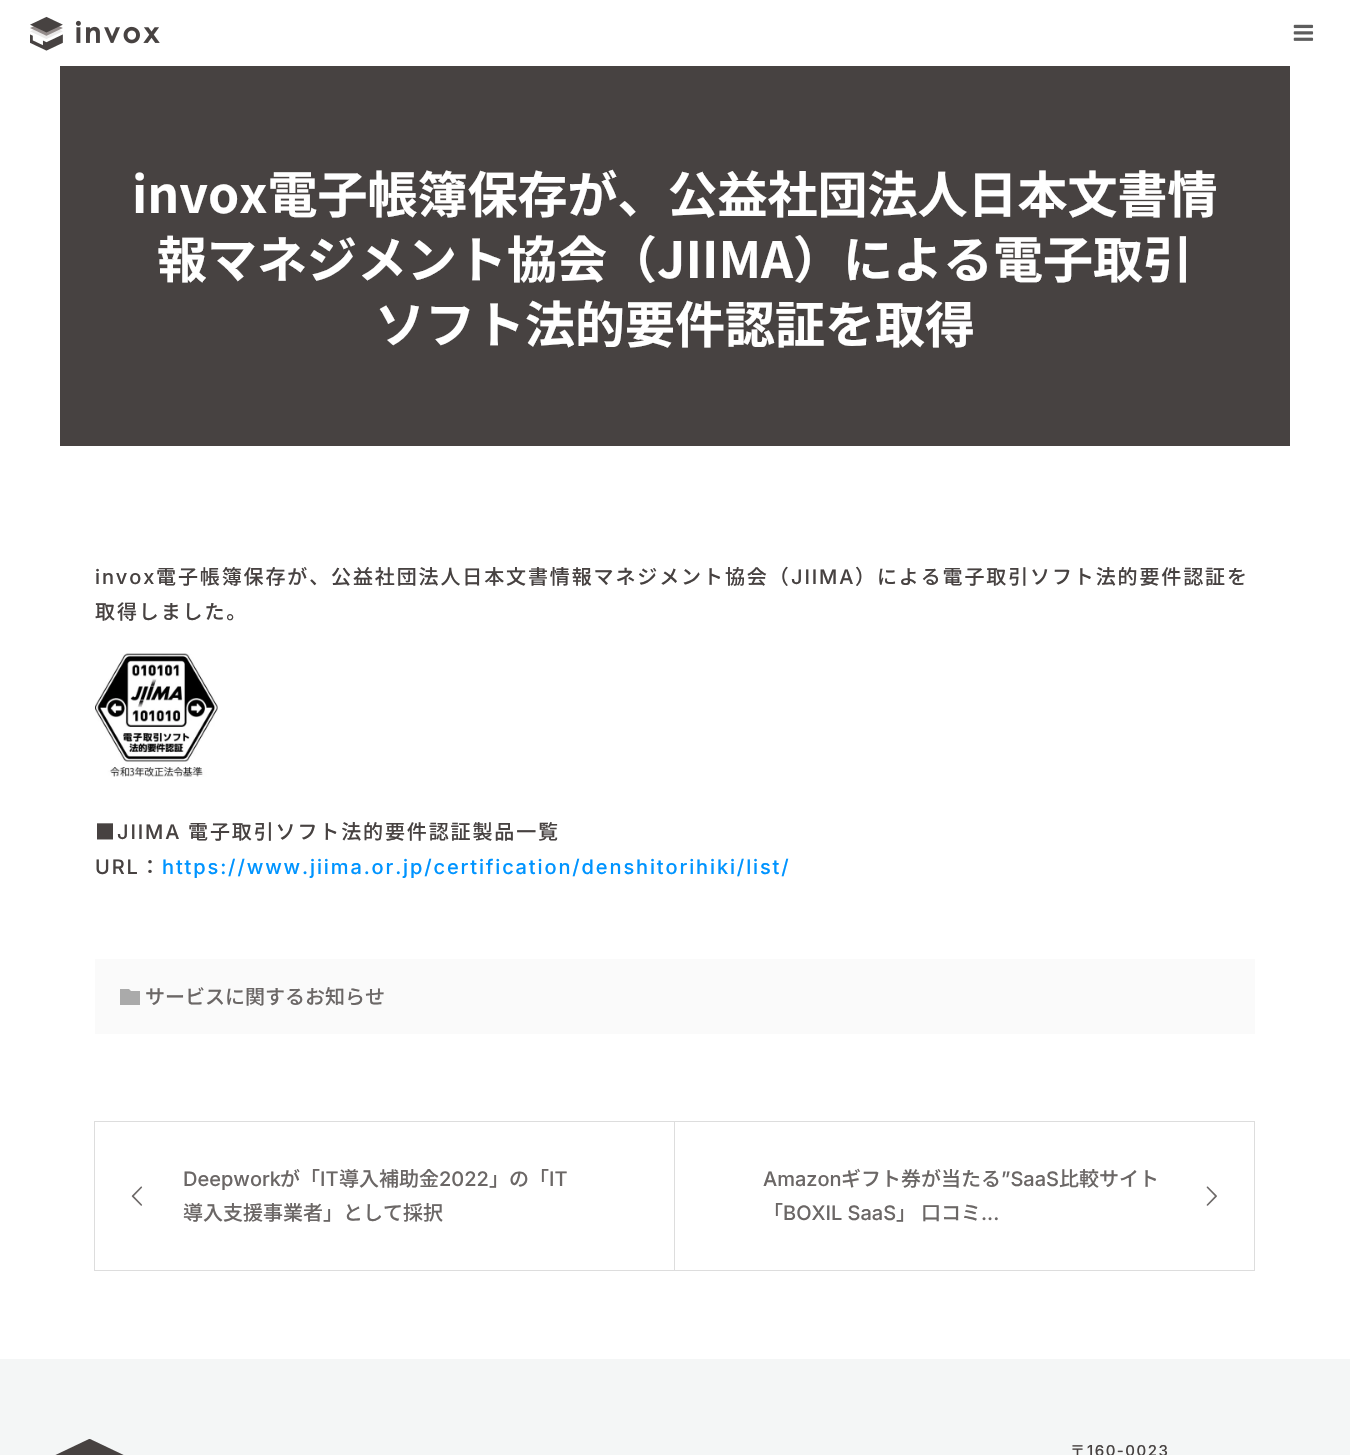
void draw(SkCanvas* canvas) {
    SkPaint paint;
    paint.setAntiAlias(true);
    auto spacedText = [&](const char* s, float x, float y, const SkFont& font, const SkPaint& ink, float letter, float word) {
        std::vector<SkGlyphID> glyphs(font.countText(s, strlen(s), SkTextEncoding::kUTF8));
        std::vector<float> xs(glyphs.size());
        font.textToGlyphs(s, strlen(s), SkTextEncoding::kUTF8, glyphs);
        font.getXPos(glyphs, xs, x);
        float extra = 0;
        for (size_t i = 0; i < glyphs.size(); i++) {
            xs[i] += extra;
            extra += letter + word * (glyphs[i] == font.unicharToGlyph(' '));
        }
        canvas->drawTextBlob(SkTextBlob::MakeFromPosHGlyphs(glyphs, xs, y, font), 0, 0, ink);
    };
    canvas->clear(0xFFFFFFFF);
    canvas->drawImageRect(SkImages::DeferredFromEncodedData(SkData::MakeFromFileName("img1.png")), SkRect::MakeXYWH(30, 16, 130, 35), SkSamplingOptions());
    canvas->drawImageRect(SkImages::DeferredFromEncodedData(SkData::MakeFromFileName("img2.png")), SkRect::MakeXYWH(1293, 24, 21, 17), SkSamplingOptions());
    paint.setColor(0xFF474241);
    canvas->drawRect(SkRect::MakeXYWH(60, 66, 1230, 380), paint);
    SkFont font1(fontMgr->matchFamilyStyle("Noto Sans JP", SkFontStyle::Bold()), 50);
    font1.setSubpixel(true);
    paint.setColor(0xFFFFFFFF);
    canvas->drawString("invox電子帳簿保存が、公益社団法人日本文書情", 132, 213, font1, paint);
    canvas->drawString("報マネジメント協会（JIIMA）による電子取引", 157, 278, font1, paint);
    canvas->drawString("ソフト法的要件認証を取得", 375, 343, font1, paint);
    SkFont font2(fontMgr->matchFamilyStyle("Inter", SkFontStyle(500, SkFontStyle::kNormal_Width, SkFontStyle::kUpright_Slant)), 20);
    font2.setSubpixel(true);
    paint.setColor(0xFF474241);
    spacedText("invox", 95, 584, font2, paint, 1.88f, 0);
    SkFont font3(fontMgr->matchFamilyStyle("Noto Sans JP", SkFontStyle(500, SkFontStyle::kNormal_Width, SkFontStyle::kUpright_Slant)), 20);
    font3.setSubpixel(true);
    spacedText("電子帳簿保存が、公益社団法人日本文書情報マネジメント協会（", 156, 584, font3, paint, 1.88f, 0);
    spacedText("JIIMA", 791, 584, font2, paint, 1.88f, 0);
    spacedText("）による電子取引ソフト法的要件認証を", 855, 584, font3, paint, 1.88f, 0);
    spacedText("取得しました。", 95, 619, font3, paint, 1.88f, 0);
    canvas->drawImageRect(SkImages::DeferredFromEncodedData(SkData::MakeFromFileName("img3.png")), SkRect::MakeXYWH(95, 653, 123, 124), SkSamplingOptions());
    spacedText("■", 95, 839, font3, paint, 1.88f, 0);
    spacedText("JIIMA", 117, 839, font2, paint, 1.88f, 0);
    spacedText("電子取引ソフト法的要件認証製品一覧", 188, 839, font3, paint, 1.88f, 0);
    spacedText("URL", 95, 874, font2, paint, 1.88f, 0);
    spacedText("：", 140, 874, font3, paint, 1.88f, 0);
    paint.setColor(0xFF0094FF);
    spacedText("https://www.jiima.or.jp/certification/denshitorihiki/list/", 162, 874, font2, paint, 1.88f, 0);
    paint.setColor(0xFFFAFAFA);
    canvas->drawRect(SkRect::MakeXYWH(95, 959, 1160, 75), paint);
    paint.setColor(0xFFAAAAAA);
    canvas->drawPath(SkPathBuilder().moveTo(129, 989).lineTo(131, 991).lineTo(140, 991).lineTo(140, 1005).lineTo(120, 1005).lineTo(120, 989).close().detach(), paint);
    paint.setColor(0xFF6B6766);
    canvas->drawString("サービスに関するお知らせ", 145, 1004, font3, paint);
    paint.setStyle(SkPaint::kStroke_Style);
    paint.setStrokeWidth(1);
    paint.setColor(0xFFDDDDDD);
    canvas->drawRect(SkRect::MakeXYWH(94.5f, 1121.5f, 580, 149), paint);
    canvas->drawImageRect(SkImages::DeferredFromEncodedData(SkData::MakeFromFileName("img4.png")), SkRect::MakeXYWH(131, 1186, 12, 20), SkSamplingOptions());
    paint.setStyle(SkPaint::kFill_Style);
    paint.setColor(0xFF6B6766);
    canvas->drawString("Deepwork", 183, 1186, font2, paint);
    canvas->drawString("が「", 280, 1186, font3, paint);
    canvas->drawString("IT", 320, 1186, font2, paint);
    canvas->drawString("導入補助金", 339, 1186, font3, paint);
    canvas->drawString("2022", 439, 1186, font2, paint);
    canvas->drawString("」の「", 489, 1186, font3, paint);
    canvas->drawString("IT", 549, 1186, font2, paint);
    canvas->drawString("導入支援事業者」として採択", 183, 1220, font3, paint);
    paint.setStyle(SkPaint::kStroke_Style);
    paint.setColor(0xFFDDDDDD);
    canvas->drawRect(SkRect::MakeXYWH(674.5f, 1121.5f, 580, 149), paint);
    paint.setStyle(SkPaint::kFill_Style);
    paint.setColor(0xFF6B6766);
    canvas->drawString("Amazon", 763, 1186, font2, paint);
    canvas->drawString("ギフト券が当たる", 841, 1186, font3, paint);
    canvas->drawString("”SaaS", 1001, 1186, font2, paint);
    canvas->drawString("比較サイト", 1059, 1186, font3, paint);
    canvas->drawString("「", 763, 1220, font3, paint);
    canvas->drawString("BOXIL SaaS", 783, 1220, font2, paint);
    canvas->drawString("」", 896, 1220, font3, paint);
    canvas->drawString("口コミ", 921, 1220, font3, paint);
    canvas->drawString("...", 981, 1220, font2, paint);
    canvas->drawImageRect(SkImages::DeferredFromEncodedData(SkData::MakeFromFileName("img5.png")), SkRect::MakeXYWH(1206, 1186, 11, 20), SkSamplingOptions());
    paint.setColor(0xFFF4F6F6);
    canvas->drawRect(SkRect::MakeXYWH(0, 1359, 1350, 96), paint);
    canvas->drawImageRect(SkImages::DeferredFromEncodedData(SkData::MakeFromFileName("img6.png")), SkRect::MakeXYWH(55, 1439, 69, 16), SkSamplingOptions());
    SkFont font4(fontMgr->matchFamilyStyle("Noto Sans JP", SkFontStyle(500, SkFontStyle::kNormal_Width, SkFontStyle::kUpright_Slant)), 15);
    font4.setSubpixel(true);
    paint.setColor(0xFF474241);
    spacedText("〒", 1070, 1456, font4, paint, 1.5f, 0);
    SkFont font5(fontMgr->matchFamilyStyle("Inter", SkFontStyle(500, SkFontStyle::kNormal_Width, SkFontStyle::kUpright_Slant)), 15);
    font5.setSubpixel(true);
    spacedText("160-0023", 1087, 1456, font5, paint, 1.5f, 0);
}
